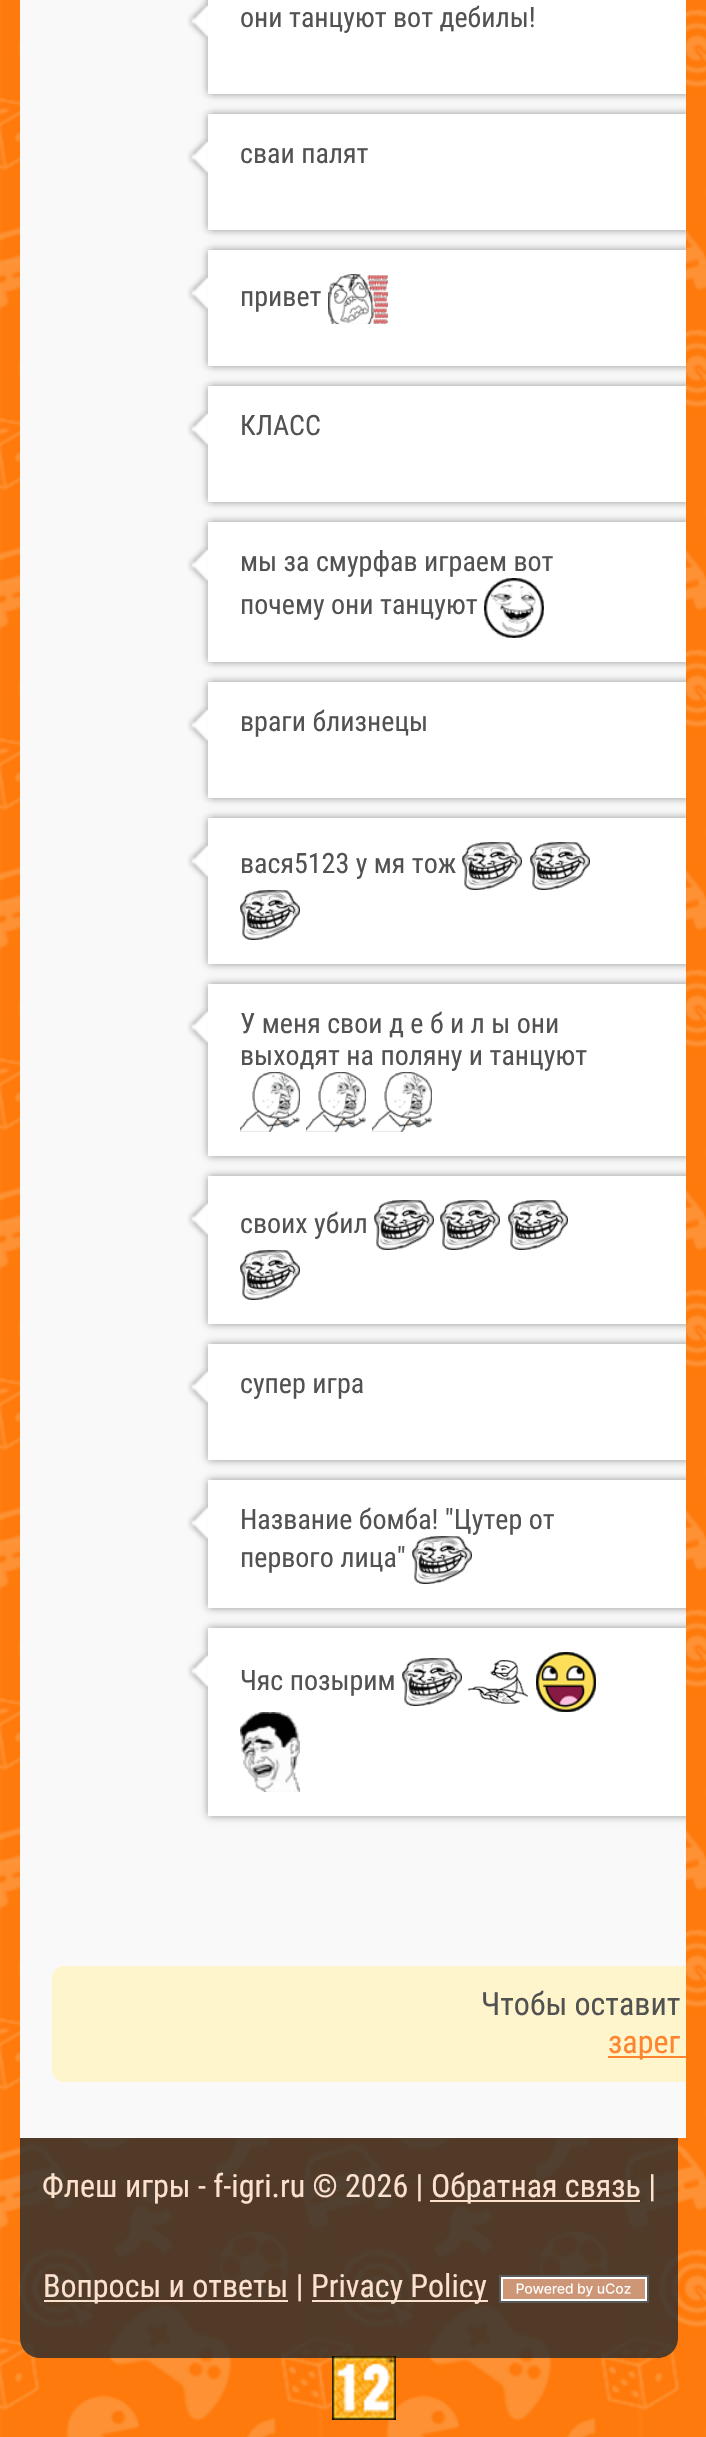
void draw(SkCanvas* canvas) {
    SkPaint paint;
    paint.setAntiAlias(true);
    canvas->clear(0xFFFFFFFF);
    canvas->drawImageRect(SkImages::DeferredFromEncodedData(SkData::MakeFromFileName("img1.png")), SkRect::MakeXYWH(0, 0, 706, 2437), SkSamplingOptions());
    paint.setColor(0xFFF9F9F9);
    canvas->drawRect(SkRect::MakeXYWH(20, 0, 666, 2138), paint);
    canvas->save();
    canvas->clipRect(SkRect::MakeXYWH(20, 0, 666, 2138));
    paint.setColor(0xFF929292);
    paint.setMaskFilter(SkMaskFilter::MakeBlur(kNormal_SkBlurStyle, 4));
    canvas->drawRect(SkRect::MakeXYWH(208, -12, 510, 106), paint);
    paint.setMaskFilter(nullptr);
    canvas->restore();
    canvas->drawImageRect(SkImages::DeferredFromEncodedData(SkData::MakeFromFileName("img2.png")), SkRect::MakeXYWH(187, 2, 21, 38), SkSamplingOptions());
    paint.setColor(0xFFFFFFFF);
    canvas->drawRect(SkRect::MakeXYWH(208, 0, 478, 94), paint);
    SkFont font1(fontMgr->matchFamilyStyle("Roboto Condensed", SkFontStyle::Normal()), 28);
    font1.setSubpixel(true);
    paint.setColor(0xFF525252);
    canvas->drawString("они танцуют вот дебилы!", 240, 27, font1, paint);
    canvas->save();
    canvas->clipRect(SkRect::MakeXYWH(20, 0, 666, 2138));
    paint.setColor(0xFF929292);
    paint.setMaskFilter(SkMaskFilter::MakeBlur(kNormal_SkBlurStyle, 4));
    canvas->drawRect(SkRect::MakeXYWH(208, 114, 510, 116), paint);
    paint.setMaskFilter(nullptr);
    canvas->restore();
    canvas->drawImageRect(SkImages::DeferredFromEncodedData(SkData::MakeFromFileName("img2.png")), SkRect::MakeXYWH(187, 138, 21, 38), SkSamplingOptions());
    paint.setColor(0xFFFFFFFF);
    canvas->drawRect(SkRect::MakeXYWH(208, 114, 478, 116), paint);
    paint.setColor(0xFF525252);
    canvas->drawString("сваи палят", 240, 163, font1, paint);
    canvas->save();
    canvas->clipRect(SkRect::MakeXYWH(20, 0, 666, 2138));
    paint.setColor(0xFF929292);
    paint.setMaskFilter(SkMaskFilter::MakeBlur(kNormal_SkBlurStyle, 4));
    canvas->drawRect(SkRect::MakeXYWH(208, 250, 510, 116), paint);
    paint.setMaskFilter(nullptr);
    canvas->restore();
    canvas->drawImageRect(SkImages::DeferredFromEncodedData(SkData::MakeFromFileName("img2.png")), SkRect::MakeXYWH(187, 274, 21, 38), SkSamplingOptions());
    paint.setColor(0xFFFFFFFF);
    canvas->drawRect(SkRect::MakeXYWH(208, 250, 478, 116), paint);
    paint.setColor(0xFF525252);
    canvas->drawString("привет", 240, 306, font1, paint);
    canvas->drawImageRect(SkImages::DeferredFromEncodedData(SkData::MakeFromFileName("img3.png")), SkRect::MakeXYWH(328, 274, 60, 50), SkSamplingOptions());
    canvas->save();
    canvas->clipRect(SkRect::MakeXYWH(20, 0, 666, 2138));
    paint.setColor(0xFF929292);
    paint.setMaskFilter(SkMaskFilter::MakeBlur(kNormal_SkBlurStyle, 4));
    canvas->drawRect(SkRect::MakeXYWH(208, 386, 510, 116), paint);
    paint.setMaskFilter(nullptr);
    canvas->restore();
    canvas->drawImageRect(SkImages::DeferredFromEncodedData(SkData::MakeFromFileName("img2.png")), SkRect::MakeXYWH(187, 410, 21, 38), SkSamplingOptions());
    paint.setColor(0xFFFFFFFF);
    canvas->drawRect(SkRect::MakeXYWH(208, 386, 478, 116), paint);
    paint.setColor(0xFF525252);
    canvas->drawString("КЛАСС", 240, 435, font1, paint);
    canvas->save();
    canvas->clipRect(SkRect::MakeXYWH(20, 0, 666, 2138));
    paint.setColor(0xFF929292);
    paint.setMaskFilter(SkMaskFilter::MakeBlur(kNormal_SkBlurStyle, 4));
    canvas->drawRect(SkRect::MakeXYWH(208, 522, 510, 140), paint);
    paint.setMaskFilter(nullptr);
    canvas->restore();
    canvas->drawImageRect(SkImages::DeferredFromEncodedData(SkData::MakeFromFileName("img2.png")), SkRect::MakeXYWH(187, 546, 21, 38), SkSamplingOptions());
    paint.setColor(0xFFFFFFFF);
    canvas->drawRect(SkRect::MakeXYWH(208, 522, 478, 140), paint);
    paint.setColor(0xFF525252);
    canvas->drawString("мы за смурфав играем вот", 240, 571, font1, paint);
    canvas->drawString("почему они танцуют", 240, 614, font1, paint);
    canvas->drawImageRect(SkImages::DeferredFromEncodedData(SkData::MakeFromFileName("img4.png")), SkRect::MakeXYWH(484, 578, 60, 60), SkSamplingOptions());
    canvas->save();
    canvas->clipRect(SkRect::MakeXYWH(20, 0, 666, 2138));
    paint.setColor(0xFF929292);
    paint.setMaskFilter(SkMaskFilter::MakeBlur(kNormal_SkBlurStyle, 4));
    canvas->drawRect(SkRect::MakeXYWH(208, 682, 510, 116), paint);
    paint.setMaskFilter(nullptr);
    canvas->restore();
    canvas->drawImageRect(SkImages::DeferredFromEncodedData(SkData::MakeFromFileName("img2.png")), SkRect::MakeXYWH(187, 706, 21, 38), SkSamplingOptions());
    paint.setColor(0xFFFFFFFF);
    canvas->drawRect(SkRect::MakeXYWH(208, 682, 478, 116), paint);
    paint.setColor(0xFF525252);
    canvas->drawString("враги близнецы", 240, 731, font1, paint);
    canvas->save();
    canvas->clipRect(SkRect::MakeXYWH(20, 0, 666, 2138));
    paint.setColor(0xFF929292);
    paint.setMaskFilter(SkMaskFilter::MakeBlur(kNormal_SkBlurStyle, 4));
    canvas->drawRect(SkRect::MakeXYWH(208, 818, 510, 146), paint);
    paint.setMaskFilter(nullptr);
    canvas->restore();
    canvas->drawImageRect(SkImages::DeferredFromEncodedData(SkData::MakeFromFileName("img2.png")), SkRect::MakeXYWH(187, 842, 21, 38), SkSamplingOptions());
    paint.setColor(0xFFFFFFFF);
    canvas->drawRect(SkRect::MakeXYWH(208, 818, 478, 146), paint);
    paint.setColor(0xFF525252);
    canvas->drawString("вася5123 у мя тож", 240, 873, font1, paint);
    canvas->drawImageRect(SkImages::DeferredFromEncodedData(SkData::MakeFromFileName("img5.png")), SkRect::MakeXYWH(462, 842, 60, 48), SkSamplingOptions());
    canvas->drawImageRect(SkImages::DeferredFromEncodedData(SkData::MakeFromFileName("img6.png")), SkRect::MakeXYWH(530, 842, 60, 48), SkSamplingOptions());
    canvas->drawImageRect(SkImages::DeferredFromEncodedData(SkData::MakeFromFileName("img7.png")), SkRect::MakeXYWH(240, 890, 60, 50), SkSamplingOptions());
    canvas->save();
    canvas->clipRect(SkRect::MakeXYWH(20, 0, 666, 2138));
    paint.setColor(0xFF929292);
    paint.setMaskFilter(SkMaskFilter::MakeBlur(kNormal_SkBlurStyle, 4));
    canvas->drawRect(SkRect::MakeXYWH(208, 984, 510, 172), paint);
    paint.setMaskFilter(nullptr);
    canvas->restore();
    canvas->drawImageRect(SkImages::DeferredFromEncodedData(SkData::MakeFromFileName("img2.png")), SkRect::MakeXYWH(187, 1008, 21, 38), SkSamplingOptions());
    paint.setColor(0xFFFFFFFF);
    canvas->drawRect(SkRect::MakeXYWH(208, 984, 478, 172), paint);
    paint.setColor(0xFF525252);
    canvas->drawString("У меня свои д е б и л ы они", 240, 1033, font1, paint);
    canvas->drawString("выходят на поляну и танцуют", 240, 1065, font1, paint);
    canvas->drawImageRect(SkImages::DeferredFromEncodedData(SkData::MakeFromFileName("img8.png")), SkRect::MakeXYWH(240, 1072, 60, 60), SkSamplingOptions());
    canvas->drawImageRect(SkImages::DeferredFromEncodedData(SkData::MakeFromFileName("img9.png")), SkRect::MakeXYWH(306, 1072, 60, 60), SkSamplingOptions());
    canvas->drawImageRect(SkImages::DeferredFromEncodedData(SkData::MakeFromFileName("img9.png")), SkRect::MakeXYWH(372, 1072, 60, 60), SkSamplingOptions());
    canvas->save();
    canvas->clipRect(SkRect::MakeXYWH(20, 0, 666, 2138));
    paint.setColor(0xFF929292);
    paint.setMaskFilter(SkMaskFilter::MakeBlur(kNormal_SkBlurStyle, 4));
    canvas->drawRect(SkRect::MakeXYWH(208, 1176, 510, 148), paint);
    paint.setMaskFilter(nullptr);
    canvas->restore();
    canvas->drawImageRect(SkImages::DeferredFromEncodedData(SkData::MakeFromFileName("img2.png")), SkRect::MakeXYWH(187, 1200, 21, 38), SkSamplingOptions());
    paint.setColor(0xFFFFFFFF);
    canvas->drawRect(SkRect::MakeXYWH(208, 1176, 478, 148), paint);
    paint.setColor(0xFF525252);
    canvas->drawString("своих убил", 240, 1233, font1, paint);
    canvas->drawImageRect(SkImages::DeferredFromEncodedData(SkData::MakeFromFileName("img7.png")), SkRect::MakeXYWH(374, 1200, 60, 50), SkSamplingOptions());
    canvas->drawImageRect(SkImages::DeferredFromEncodedData(SkData::MakeFromFileName("img7.png")), SkRect::MakeXYWH(440, 1200, 60, 50), SkSamplingOptions());
    canvas->drawImageRect(SkImages::DeferredFromEncodedData(SkData::MakeFromFileName("img7.png")), SkRect::MakeXYWH(508, 1200, 60, 50), SkSamplingOptions());
    canvas->drawImageRect(SkImages::DeferredFromEncodedData(SkData::MakeFromFileName("img7.png")), SkRect::MakeXYWH(240, 1250, 60, 50), SkSamplingOptions());
    canvas->save();
    canvas->clipRect(SkRect::MakeXYWH(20, 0, 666, 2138));
    paint.setColor(0xFF929292);
    paint.setMaskFilter(SkMaskFilter::MakeBlur(kNormal_SkBlurStyle, 4));
    canvas->drawRect(SkRect::MakeXYWH(208, 1344, 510, 116), paint);
    paint.setMaskFilter(nullptr);
    canvas->restore();
    canvas->drawImageRect(SkImages::DeferredFromEncodedData(SkData::MakeFromFileName("img2.png")), SkRect::MakeXYWH(187, 1368, 21, 38), SkSamplingOptions());
    paint.setColor(0xFFFFFFFF);
    canvas->drawRect(SkRect::MakeXYWH(208, 1344, 478, 116), paint);
    paint.setColor(0xFF525252);
    canvas->drawString("супер игра", 240, 1393, font1, paint);
    canvas->save();
    canvas->clipRect(SkRect::MakeXYWH(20, 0, 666, 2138));
    paint.setColor(0xFF929292);
    paint.setMaskFilter(SkMaskFilter::MakeBlur(kNormal_SkBlurStyle, 4));
    canvas->drawRect(SkRect::MakeXYWH(208, 1480, 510, 128), paint);
    paint.setMaskFilter(nullptr);
    canvas->restore();
    canvas->drawImageRect(SkImages::DeferredFromEncodedData(SkData::MakeFromFileName("img2.png")), SkRect::MakeXYWH(187, 1504, 21, 38), SkSamplingOptions());
    paint.setColor(0xFFFFFFFF);
    canvas->drawRect(SkRect::MakeXYWH(208, 1480, 478, 128), paint);
    paint.setColor(0xFF525252);
    canvas->drawString("Название бомба! \"Цутер от", 240, 1529, font1, paint);
    canvas->drawString("первого лица\"", 240, 1567, font1, paint);
    canvas->drawImageRect(SkImages::DeferredFromEncodedData(SkData::MakeFromFileName("img6.png")), SkRect::MakeXYWH(412, 1536, 60, 48), SkSamplingOptions());
    canvas->save();
    canvas->clipRect(SkRect::MakeXYWH(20, 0, 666, 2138));
    paint.setColor(0xFF929292);
    paint.setMaskFilter(SkMaskFilter::MakeBlur(kNormal_SkBlurStyle, 4));
    canvas->drawRect(SkRect::MakeXYWH(208, 1628, 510, 188), paint);
    paint.setMaskFilter(nullptr);
    canvas->restore();
    canvas->drawImageRect(SkImages::DeferredFromEncodedData(SkData::MakeFromFileName("img2.png")), SkRect::MakeXYWH(187, 1652, 21, 38), SkSamplingOptions());
    paint.setColor(0xFFFFFFFF);
    canvas->drawRect(SkRect::MakeXYWH(208, 1628, 478, 188), paint);
    paint.setColor(0xFF525252);
    canvas->drawString("Чяс позырим", 240, 1690, font1, paint);
    canvas->drawImageRect(SkImages::DeferredFromEncodedData(SkData::MakeFromFileName("img6.png")), SkRect::MakeXYWH(402, 1658, 60, 48), SkSamplingOptions());
    canvas->drawImageRect(SkImages::DeferredFromEncodedData(SkData::MakeFromFileName("img10.png")), SkRect::MakeXYWH(468, 1660, 60, 44), SkSamplingOptions());
    canvas->drawImageRect(SkImages::DeferredFromEncodedData(SkData::MakeFromFileName("img11.png")), SkRect::MakeXYWH(536, 1652, 60, 60), SkSamplingOptions());
    canvas->drawImageRect(SkImages::DeferredFromEncodedData(SkData::MakeFromFileName("img12.png")), SkRect::MakeXYWH(240, 1712, 60, 80), SkSamplingOptions());
    paint.setColor(0xFFFFF5CC);
    canvas->drawPath(SkPathBuilder().moveTo(64, 1966).lineTo(686, 1966).lineTo(686, 2082).lineTo(64, 2082).cubicTo(57.5f, 2082, 52, 2076.5f, 52, 2070).lineTo(52, 1978).cubicTo(52, 1971.5f, 57.5f, 1966, 64, 1966).close().detach(), paint);
    SkFont font2(fontMgr->matchFamilyStyle("Roboto Condensed", SkFontStyle::Normal()), 32);
    font2.setSubpixel(true);
    paint.setColor(0xFF525252);
    canvas->drawString("Чтобы оставит", 481, 2015, font2, paint);
    paint.setColor(0xFFFD8530);
    canvas->drawRect(SkRect::MakeXYWH(608, 2056, 78, 2), paint);
    canvas->drawString("зарег", 608, 2053, font2, paint);
    paint.setColor(0xCC262B2E);
    canvas->drawPath(SkPathBuilder().moveTo(20, 2138).lineTo(678, 2138).lineTo(678, 2338).cubicTo(678, 2349, 669, 2358, 658, 2358).lineTo(40, 2358).cubicTo(29, 2358, 20, 2349, 20, 2338).close().detach(), paint);
    paint.setColor(0xFFFCE1CD);
    canvas->drawString("Флеш игры - f-igri.ru © 2026 |", 42, 2197, font2, paint);
    canvas->drawRect(SkRect::MakeXYWH(430, 2200, 210, 2), paint);
    canvas->drawString("Обратная связь |", 431, 2197, font2, paint);
    canvas->drawRect(SkRect::MakeXYWH(44, 2300, 244, 2), paint);
    canvas->drawString("Вопросы и ответы |", 43, 2297, font2, paint);
    canvas->drawRect(SkRect::MakeXYWH(312, 2300, 176, 2), paint);
    canvas->drawString("Privacy Policy", 311, 2297, font2, paint);
    canvas->drawImageRect(SkImages::DeferredFromEncodedData(SkData::MakeFromFileName("img13.png")), SkRect::MakeXYWH(499, 2275, 150, 28), SkSamplingOptions());
    canvas->drawImageRect(SkImages::DeferredFromEncodedData(SkData::MakeFromFileName("img14.png")), SkRect::MakeXYWH(332, 2356, 64, 64), SkSamplingOptions());
}
